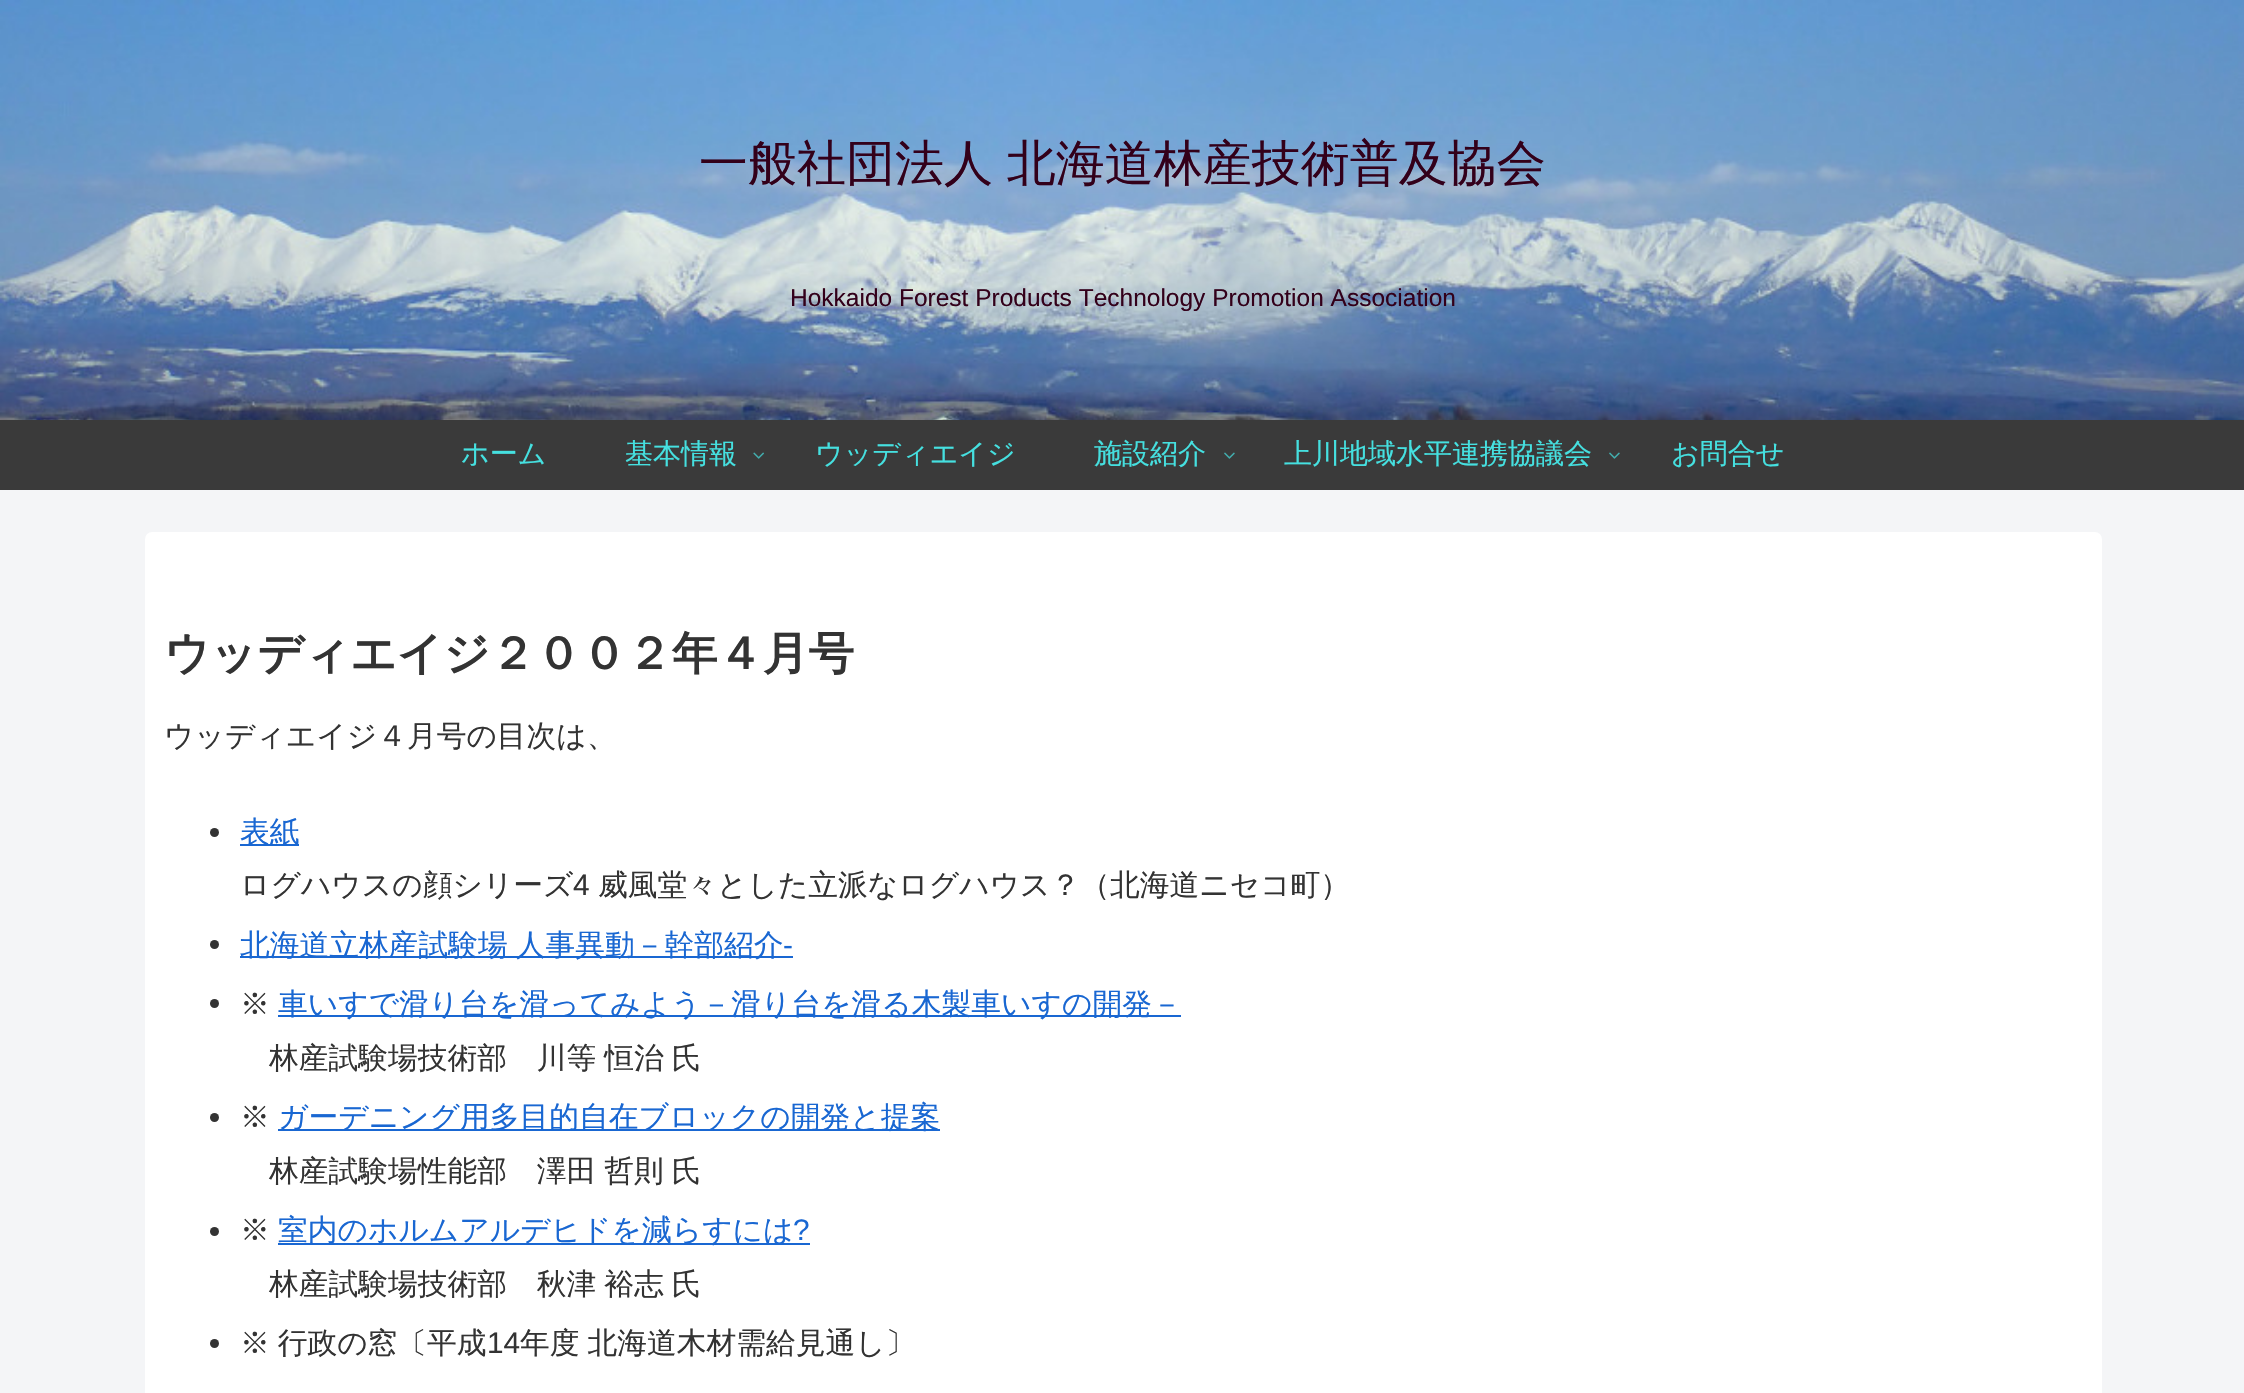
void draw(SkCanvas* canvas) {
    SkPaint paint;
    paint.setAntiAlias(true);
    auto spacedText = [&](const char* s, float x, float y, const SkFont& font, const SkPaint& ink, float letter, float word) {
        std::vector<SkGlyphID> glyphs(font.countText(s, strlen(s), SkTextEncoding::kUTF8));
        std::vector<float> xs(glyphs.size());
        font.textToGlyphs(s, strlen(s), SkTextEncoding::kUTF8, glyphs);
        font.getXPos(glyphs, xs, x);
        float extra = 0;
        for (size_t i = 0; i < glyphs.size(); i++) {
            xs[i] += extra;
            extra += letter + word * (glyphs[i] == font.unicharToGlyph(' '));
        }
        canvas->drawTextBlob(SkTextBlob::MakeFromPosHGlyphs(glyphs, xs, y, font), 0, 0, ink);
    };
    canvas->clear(0xFFF4F5F7);
    canvas->drawImageRect(SkImages::DeferredFromEncodedData(SkData::MakeFromFileName("img1.png")), SkRect::MakeXYWH(0, 0, 2244, 420), SkSamplingOptions());
    SkFont font1(fontMgr->matchFamilyStyle("WenQuanYi Zen Hei", SkFontStyle(500, SkFontStyle::kNormal_Width, SkFontStyle::kUpright_Slant)), 49);
    font1.setSubpixel(true);
    paint.setColor(0xFF33001A);
    spacedText("一般社団法人 北海道林産技術普及協会", 699, 180, font1, paint, 0, -1);
    SkFont font2(fontMgr->matchFamilyStyle("Liberation Sans", SkFontStyle::Normal()), 24.5f);
    font2.setSubpixel(true);
    canvas->drawString("Hokkaido Forest Products Technology Promotion Association", 790, 306, font2, paint);
    paint.setColor(0xFF3A3A3A);
    canvas->drawRect(SkRect::MakeXYWH(0, 420, 2244, 70), paint);
    SkFont font3(fontMgr->matchFamilyStyle("WenQuanYi Zen Hei", SkFontStyle(500, SkFontStyle::kNormal_Width, SkFontStyle::kUpright_Slant)), 28);
    font3.setSubpixel(true);
    paint.setColor(0xFF45E0E0);
    canvas->drawString("ホーム", 461, 463, font3, paint);
    canvas->drawString("基本情報", 625, 463, font3, paint);
    canvas->drawImageRect(SkImages::DeferredFromEncodedData(SkData::MakeFromFileName("img2.png")), SkRect::MakeXYWH(753, 452, 11, 7), SkSamplingOptions());
    canvas->drawString("ウッディエイジ", 815, 463, font3, paint);
    canvas->drawString("施設紹介", 1094, 463, font3, paint);
    canvas->drawImageRect(SkImages::DeferredFromEncodedData(SkData::MakeFromFileName("img3.png")), SkRect::MakeXYWH(1224, 452, 11, 7), SkSamplingOptions());
    canvas->drawString("上川地域水平連携協議会", 1284, 463, font3, paint);
    canvas->drawImageRect(SkImages::DeferredFromEncodedData(SkData::MakeFromFileName("img3.png")), SkRect::MakeXYWH(1609, 452, 11, 7), SkSamplingOptions());
    canvas->drawString("お問合せ", 1671, 463, font3, paint);
    paint.setColor(0xFFFFFFFF);
    canvas->drawRoundRect(SkRect::MakeXYWH(145, 532, 1957, 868), 7, 7, paint);
    SkFont font4(fontMgr->matchFamilyStyle("WenQuanYi Zen Hei", SkFontStyle::Bold()), 45.5f);
    font4.setSubpixel(true);
    paint.setColor(0xFF333333);
    canvas->drawString("ウッディエイジ２００２年４月号", 164, 669, font4, paint);
    SkFont font5(fontMgr->matchFamilyStyle("WenQuanYi Zen Hei", SkFontStyle(500, SkFontStyle::kNormal_Width, SkFontStyle::kUpright_Slant)), 29.75f);
    font5.setSubpixel(true);
    canvas->drawString("ウッディエイジ４月号の目次は、", 164, 746, font5, paint);
    canvas->drawCircle(214.5f, 832.5f, 4.5f, paint);
    paint.setColor(0xFF1967D2);
    canvas->drawRect(SkRect::MakeXYWH(240, 844, 59, 2), paint);
    canvas->drawString("表紙", 240, 842, font5, paint);
    paint.setColor(0xFF333333);
    canvas->drawString("ログハウスの顔シリーズ", 240, 895, font5, paint);
    SkFont font6(fontMgr->matchFamilyStyle("Liberation Sans", SkFontStyle::Normal()), 29.75f);
    font6.setSubpixel(true);
    canvas->drawString("4", 573, 895, font6, paint);
    canvas->drawString("威風堂々とした立派なログハウス？（北海道ニセコ町）", 598, 895, font5, paint);
    canvas->drawCircle(214.5f, 944.5f, 4.5f, paint);
    paint.setColor(0xFF1967D2);
    canvas->drawRect(SkRect::MakeXYWH(240, 956, 553, 2), paint);
    spacedText("北海道立林産試験場 人事異動－幹部紹介", 240, 955, font5, paint, 0, -1);
    canvas->drawString("-", 783, 955, font6, paint);
    paint.setColor(0xFF333333);
    canvas->drawCircle(214.5f, 1003.5f, 4.5f, paint);
    canvas->drawString("※", 240, 1014, font5, paint);
    paint.setColor(0xFF1967D2);
    canvas->drawRect(SkRect::MakeXYWH(278, 1015, 903, 2), paint);
    canvas->drawString("車いすで滑り台を滑ってみよう－滑り台を滑る木製車いすの開発－", 278, 1014, font5, paint);
    paint.setColor(0xFF333333);
    spacedText("林産試験場技術部　川等 恒治 氏", 269, 1068, font5, paint, 0, -1);
    canvas->drawCircle(214.5f, 1117.5f, 4.5f, paint);
    canvas->drawString("※", 240, 1127, font5, paint);
    paint.setColor(0xFF1967D2);
    canvas->drawRect(SkRect::MakeXYWH(278, 1129, 662, 2), paint);
    canvas->drawString("ガーデニング用多目的自在ブロックの開発と提案", 278, 1127, font5, paint);
    paint.setColor(0xFF333333);
    spacedText("林産試験場性能部　澤田 哲則 氏", 269, 1181, font5, paint, 0, -1);
    canvas->drawCircle(214.5f, 1231.5f, 4.5f, paint);
    canvas->drawString("※", 240, 1240, font5, paint);
    paint.setColor(0xFF1967D2);
    canvas->drawRect(SkRect::MakeXYWH(278, 1243, 532, 2), paint);
    canvas->drawString("室内のホルムアルデヒドを減らすには", 278, 1240, font5, paint);
    canvas->drawString("?", 793, 1240, font6, paint);
    paint.setColor(0xFF333333);
    spacedText("林産試験場技術部　秋津 裕志 氏", 269, 1294, font5, paint, 0, -1);
    canvas->drawCircle(214.5f, 1343.5f, 4.5f, paint);
    spacedText("※ 行政の窓〔平成", 240, 1353, font5, paint, 0, -1);
    canvas->drawString("14", 487, 1353, font6, paint);
    spacedText("年度 北海道木材需給見通し〕", 520, 1353, font5, paint, 0, -1);
}
